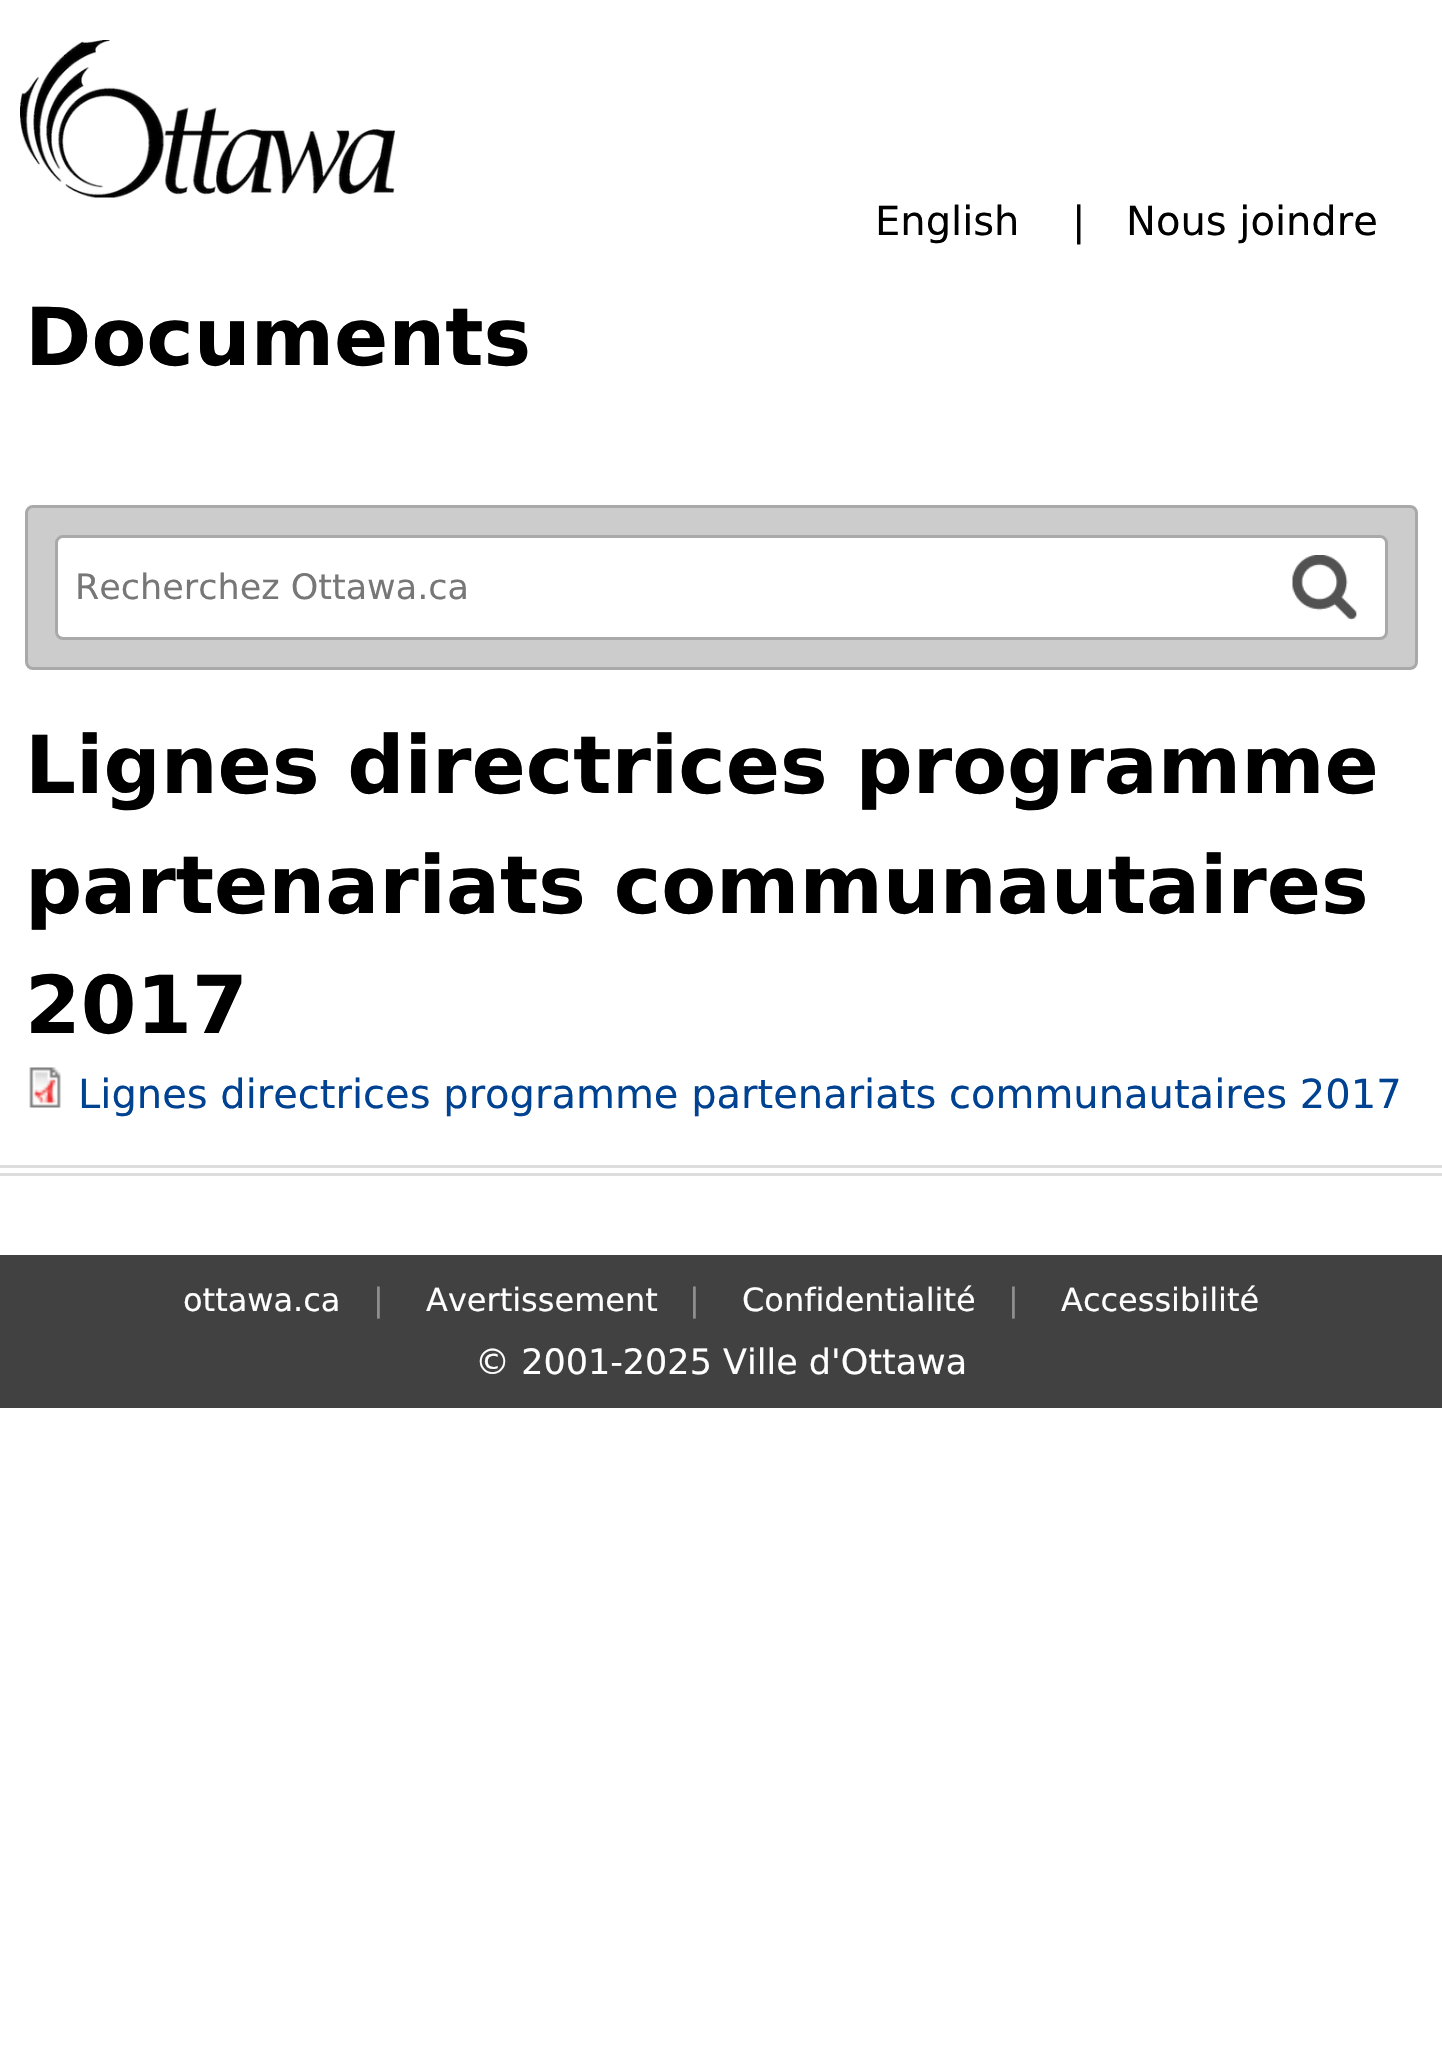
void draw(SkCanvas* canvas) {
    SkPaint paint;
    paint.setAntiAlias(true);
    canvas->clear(0xFFFFFFFF);
    canvas->drawImageRect(SkImages::DeferredFromEncodedData(SkData::MakeFromFileName("img1.png")), SkRect::MakeXYWH(20, 40, 375, 158), SkSamplingOptions());
    SkFont font1(fontMgr->matchFamilyStyle("DejaVu Sans", SkFontStyle::Normal()), 40);
    font1.setSubpixel(true);
    paint.setColor(0xFF000000);
    canvas->drawString("English", 875, 235, font1, paint);
    canvas->drawString("|", 1072, 235, font1, paint);
    canvas->drawString("Nous joindre", 1126, 235, font1, paint);
    SkFont font2(fontMgr->matchFamilyStyle("DejaVu Sans", SkFontStyle::Bold()), 80);
    font2.setSubpixel(true);
    canvas->drawString("Documents", 25, 365, font2, paint);
    paint.setColor(0xFFCCCCCC);
    canvas->drawRoundRect(SkRect::MakeXYWH(26.5f, 506.5f, 1390, 162), 6.5f, 6.5f, paint);
    paint.setStyle(SkPaint::kStroke_Style);
    paint.setStrokeWidth(3);
    paint.setColor(0xFFA9A9A9);
    canvas->drawRoundRect(SkRect::MakeXYWH(26.5f, 506.5f, 1390, 162), 6.5f, 6.5f, paint);
    paint.setStyle(SkPaint::kFill_Style);
    paint.setColor(0xFFFFFFFF);
    canvas->drawRoundRect(SkRect::MakeXYWH(56.5f, 536.5f, 1330, 102), 6.5f, 6.5f, paint);
    paint.setStyle(SkPaint::kStroke_Style);
    paint.setColor(0xFFA9A9A9);
    canvas->drawRoundRect(SkRect::MakeXYWH(56.5f, 536.5f, 1330, 102), 6.5f, 6.5f, paint);
    SkFont font3(fontMgr->matchFamilyStyle("DejaVu Sans", SkFontStyle::Normal()), 35);
    font3.setSubpixel(true);
    paint.setStyle(SkPaint::kFill_Style);
    paint.setColor(0xFF777777);
    canvas->drawString("Recherchez Ottawa.ca", 75, 599, font3, paint);
    canvas->drawImageRect(SkImages::DeferredFromEncodedData(SkData::MakeFromFileName("img2.png")), SkRect::MakeXYWH(1292, 555, 65, 65), SkSamplingOptions());
    paint.setColor(0xFF000000);
    canvas->drawString("Lignes directrices programme", 25, 793, font2, paint);
    canvas->drawString("partenariats communautaires", 25, 913, font2, paint);
    canvas->drawString("2017", 25, 1033, font2, paint);
    canvas->drawImageRect(SkImages::DeferredFromEncodedData(SkData::MakeFromFileName("img3.png")), SkRect::MakeXYWH(29, 1067, 32, 41), SkSamplingOptions());
    paint.setColor(0xFF004292);
    canvas->drawString("Lignes directrices programme partenariats communautaires 2017", 78, 1108, font1, paint);
    paint.setColor(0xFFDDDDDD);
    canvas->drawRect(SkRect::MakeXYWH(0, 1165, 1442, 3), paint);
    canvas->drawRect(SkRect::MakeXYWH(0, 1173, 1442, 3), paint);
    paint.setColor(0xFF414141);
    canvas->drawRect(SkRect::MakeXYWH(0, 1255, 1442, 153), paint);
    SkFont font4(fontMgr->matchFamilyStyle("DejaVu Sans", SkFontStyle::Normal()), 32);
    font4.setSubpixel(true);
    paint.setColor(0xFFFFFFFF);
    canvas->drawString("ottawa.ca", 183, 1311, font4, paint);
    paint.setColor(0xFF8F8F8F);
    canvas->drawString("|", 373, 1311, font4, paint);
    paint.setColor(0xFFFFFFFF);
    canvas->drawString("Avertissement", 426, 1311, font4, paint);
    paint.setColor(0xFF8F8F8F);
    canvas->drawString("|", 689, 1311, font4, paint);
    paint.setColor(0xFFFFFFFF);
    canvas->drawString("Confidentialité", 742, 1311, font4, paint);
    paint.setColor(0xFF8F8F8F);
    canvas->drawString("|", 1008, 1311, font4, paint);
    paint.setColor(0xFFFFFFFF);
    canvas->drawString("Accessibilité", 1061, 1311, font4, paint);
    canvas->drawString("© 2001-2025 Ville d'Ottawa", 475, 1374, font3, paint);
}
